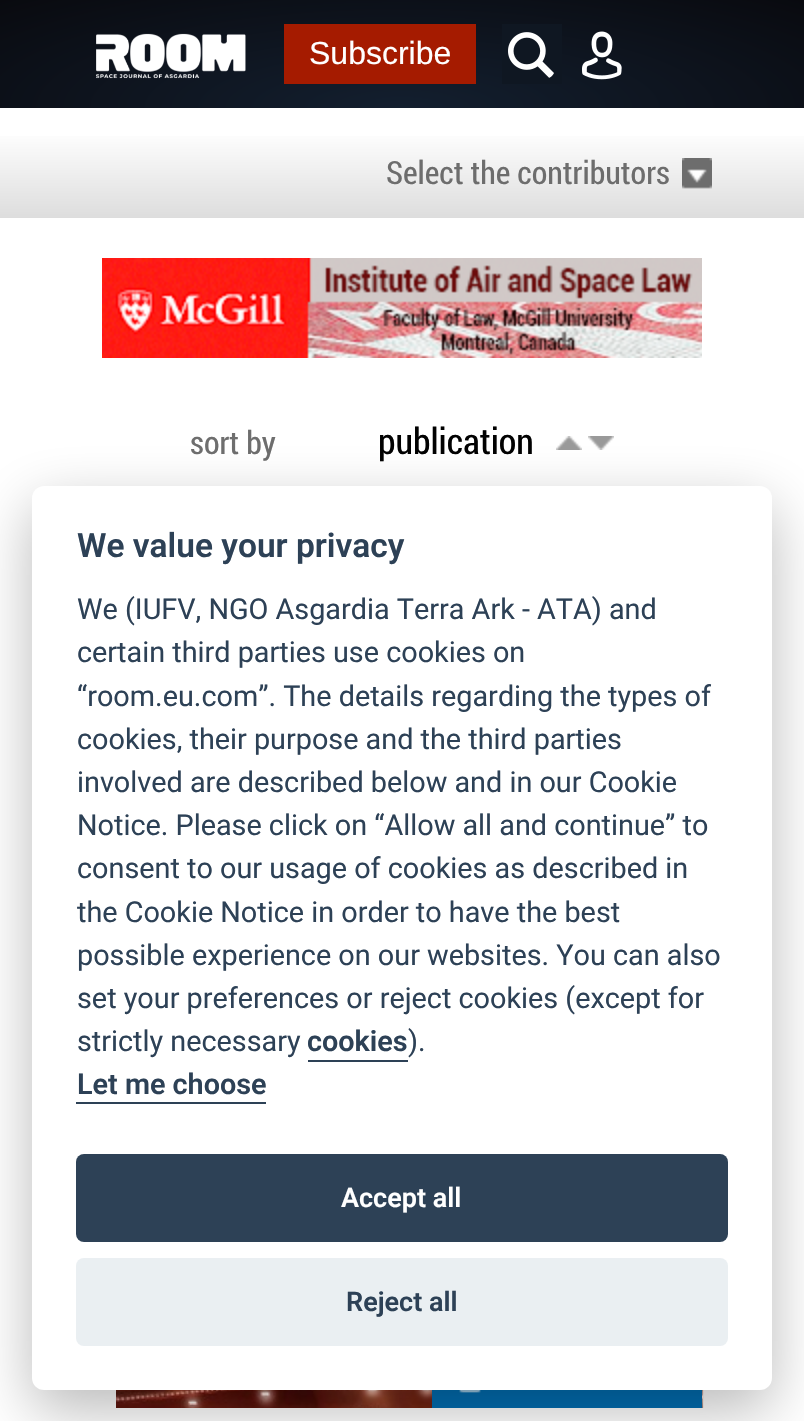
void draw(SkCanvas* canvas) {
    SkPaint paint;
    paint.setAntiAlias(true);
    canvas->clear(0xFFFFFFFF);
    {
        const SkColor colors[] = {0xFF131F2F, 0xFF090A0F};
        const float stops[] = {0, 1};
        SkMatrix m = SkMatrix::Translate(402, 108).preScale(569, 153);
        paint.setShader(SkGradientShader::MakeRadial({0, 0}, 1, colors, stops, 2, SkTileMode::kClamp, 0, &m));
        paint.setAlpha(255);
    }
    canvas->drawRect(SkRect::MakeXYWH(0, 0, 804, 108), paint);
    canvas->drawImageRect(SkImages::DeferredFromEncodedData(SkData::MakeFromFileName("img1.png")), SkRect::MakeXYWH(96, 33, 150, 46), SkSamplingOptions());
    paint.setShader(nullptr);
    paint.setColor(0xFFA51B00);
    canvas->drawRect(SkRect::MakeXYWH(284, 24, 192, 60), paint);
    SkFont font1(fontMgr->matchFamilyStyle("Liberation Sans", SkFontStyle::Normal()), 32);
    font1.setSubpixel(true);
    paint.setColor(0xFFFFFFFF);
    canvas->drawString("Subscribe", 309, 64, font1, paint);
    paint.setColor(0xFF0F1722);
    canvas->drawRect(SkRect::MakeXYWH(502, 24, 60, 60), paint);
    canvas->drawImageRect(SkImages::DeferredFromEncodedData(SkData::MakeFromFileName("img2.png")), SkRect::MakeXYWH(508, 32, 46, 46), SkSamplingOptions());
    canvas->drawImageRect(SkImages::DeferredFromEncodedData(SkData::MakeFromFileName("img3.png")), SkRect::MakeXYWH(582, 31, 40, 49), SkSamplingOptions());
    {
        const SkColor colors[] = {0xFFFFFFFF, 0xFFDDDDDD};
        const float stops[] = {0, 1};
        const SkPoint ends[] = {{402, 130}, {402, 218}};
        paint.setShader(SkGradientShader::MakeLinear(ends, colors, stops, 2, SkTileMode::kClamp));
        paint.setAlpha(255);
    }
    canvas->drawRect(SkRect::MakeXYWH(0, 136, 804, 82), paint);
    canvas->drawImageRect(SkImages::DeferredFromEncodedData(SkData::MakeFromFileName("img4.png")), SkRect::MakeXYWH(682, 158, 30, 31), SkSamplingOptions());
    SkFont font2(fontMgr->matchFamilyStyle("Roboto Condensed", SkFontStyle::Normal()), 32);
    font2.setSubpixel(true);
    paint.setShader(nullptr);
    paint.setColor(0xFF6D6D6D);
    canvas->drawString("Select the contributors", 386, 184, font2, paint);
    canvas->drawImageRect(SkImages::DeferredFromEncodedData(SkData::MakeFromFileName("img5.png")), SkRect::MakeXYWH(102, 258, 600, 100), SkSamplingOptions());
    canvas->drawString("sort by", 190, 454, font2, paint);
    SkFont font3(fontMgr->matchFamilyStyle("Roboto Condensed", SkFontStyle::Normal()), 36);
    font3.setSubpixel(true);
    paint.setColor(0xFF000000);
    canvas->drawString("publication", 378, 454, font3, paint);
    canvas->drawImageRect(SkImages::DeferredFromEncodedData(SkData::MakeFromFileName("img6.png")), SkRect::MakeXYWH(556, 436, 26, 14), SkSamplingOptions());
    canvas->drawImageRect(SkImages::DeferredFromEncodedData(SkData::MakeFromFileName("img7.png")), SkRect::MakeXYWH(588, 436, 26, 14), SkSamplingOptions());
    canvas->drawImageRect(SkImages::DeferredFromEncodedData(SkData::MakeFromFileName("img8.png")), SkRect::MakeXYWH(116, 1390, 588, 18), SkSamplingOptions());
    paint.setColor(0xFF006CB0);
    canvas->drawRect(SkRect::MakeXYWH(432, 1390, 270, 18), paint);
    canvas->drawImageRect(SkImages::DeferredFromEncodedData(SkData::MakeFromFileName("img9.png")), SkRect::MakeXYWH(459, 1390, 22, 3), SkSamplingOptions());
    paint.setColor(0x47020203);
    paint.setMaskFilter(SkMaskFilter::MakeBlur(kNormal_SkBlurStyle, 30));
    canvas->drawRoundRect(SkRect::MakeXYWH(32, 506, 740, 904), 12, 12, paint);
    paint.setMaskFilter(nullptr);
    paint.setColor(0xFFFFFFFF);
    canvas->drawRoundRect(SkRect::MakeXYWH(32, 486, 740, 904), 12, 12, paint);
    SkFont font4(fontMgr->matchFamilyStyle("Roboto", SkFontStyle(600, SkFontStyle::kNormal_Width, SkFontStyle::kUpright_Slant)), 33.5f);
    font4.setSubpixel(true);
    paint.setColor(0xFF2D4156);
    canvas->drawString("We value your privacy", 77, 557, font4, paint);
    SkFont font5(fontMgr->matchFamilyStyle("Roboto", SkFontStyle::Normal()), 28.8f);
    font5.setSubpixel(true);
    canvas->drawString("We (IUFV, NGO Asgardia Terra Ark - ATA) and", 77, 619, font5, paint);
    canvas->drawString("certain third parties use cookies on", 77, 662, font5, paint);
    canvas->drawString("“room.eu.com”. The details regarding the types of", 77, 706, font5, paint);
    canvas->drawString("cookies, their purpose and the third parties", 77, 749, font5, paint);
    canvas->drawString("involved are described below and in our Cookie", 77, 792, font5, paint);
    canvas->drawString("Notice. Please click on “Allow all and continue” to", 77, 835, font5, paint);
    canvas->drawString("consent to our usage of cookies as described in", 77, 878, font5, paint);
    canvas->drawString("the Cookie Notice in order to have the best", 77, 922, font5, paint);
    canvas->drawString("possible experience on our websites. You can also", 77, 965, font5, paint);
    canvas->drawString("set your preferences or reject cookies (except for", 77, 1008, font5, paint);
    canvas->drawString("strictly necessary", 77, 1051, font5, paint);
    SkFont font6(fontMgr->matchFamilyStyle("Roboto", SkFontStyle(600, SkFontStyle::kNormal_Width, SkFontStyle::kUpright_Slant)), 28.8f);
    font6.setSubpixel(true);
    canvas->drawString("cookies", 307, 1051, font6, paint);
    canvas->drawRect(SkRect::MakeXYWH(308, 1060, 100, 2), paint);
    canvas->drawString(").", 408, 1051, font5, paint);
    canvas->drawString("Let me choose", 77, 1094, font6, paint);
    canvas->drawRect(SkRect::MakeXYWH(76, 1102, 190, 2), paint);
    canvas->drawRoundRect(SkRect::MakeXYWH(76, 1154, 652, 88), 8, 8, paint);
    SkFont font7(fontMgr->matchFamilyStyle("Roboto", SkFontStyle(600, SkFontStyle::kNormal_Width, SkFontStyle::kUpright_Slant)), 27);
    font7.setSubpixel(true);
    paint.setColor(0xFFFFFFFF);
    canvas->drawString("Accept all", 341, 1207, font7, paint);
    paint.setColor(0xFFEAEFF2);
    canvas->drawRoundRect(SkRect::MakeXYWH(76, 1258, 652, 88), 8, 8, paint);
    paint.setColor(0xFF2D4156);
    canvas->drawString("Reject all", 346, 1311, font7, paint);
}
